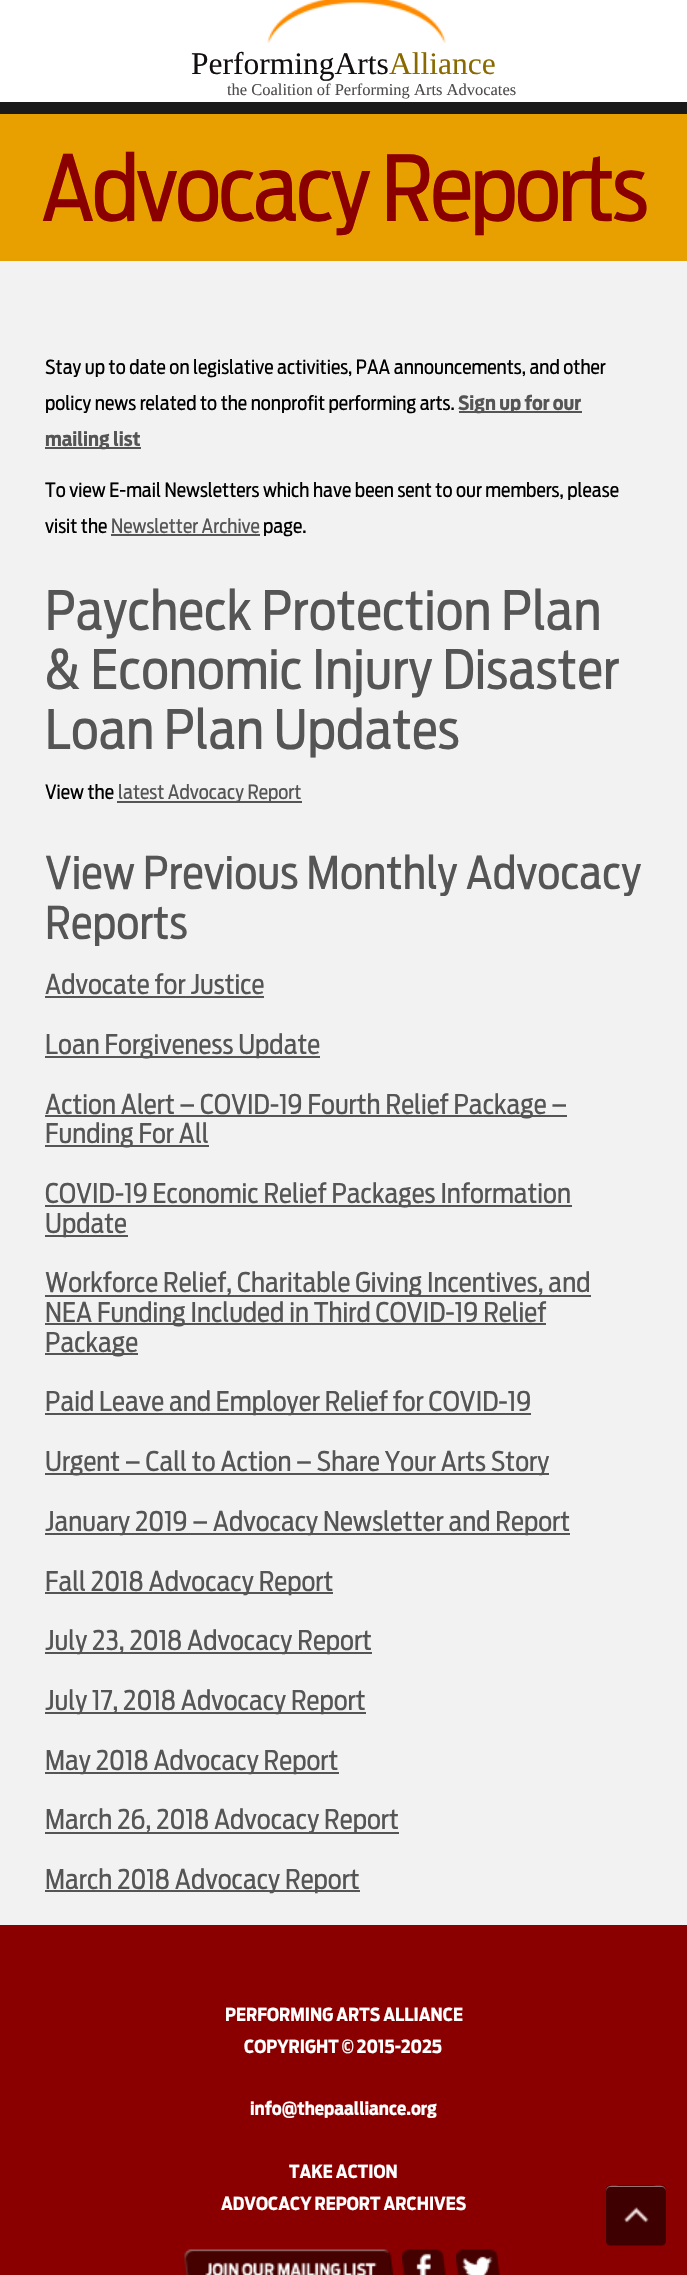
void draw(SkCanvas* canvas) {
    SkPaint paint;
    paint.setAntiAlias(true);
    auto spacedText = [&](const char* s, float x, float y, const SkFont& font, const SkPaint& ink, float letter, float word) {
        std::vector<SkGlyphID> glyphs(font.countText(s, strlen(s), SkTextEncoding::kUTF8));
        std::vector<float> xs(glyphs.size());
        font.textToGlyphs(s, strlen(s), SkTextEncoding::kUTF8, glyphs);
        font.getXPos(glyphs, xs, x);
        float extra = 0;
        for (size_t i = 0; i < glyphs.size(); i++) {
            xs[i] += extra;
            extra += letter + word * (glyphs[i] == font.unicharToGlyph(' '));
        }
        canvas->drawTextBlob(SkTextBlob::MakeFromPosHGlyphs(glyphs, xs, y, font), 0, 0, ink);
    };
    canvas->clear(0xFFFFFFFF);
    paint.setColor(0xFF1A1A1B);
    canvas->drawRect(SkRect::MakeXYWH(0, 102, 687, 12), paint);
    canvas->drawImageRect(SkImages::DeferredFromEncodedData(SkData::MakeFromFileName("img1.png")), SkRect::MakeXYWH(267, 0, 179, 44), SkSamplingOptions());
    SkFont font1(fontMgr->matchFamilyStyle("Liberation Serif", SkFontStyle::Normal()), 31.5f);
    font1.setSubpixel(true);
    paint.setColor(0xFF130F10);
    canvas->drawString("PerformingArts", 191, 74, font1, paint);
    paint.setColor(0xFF8A6A00);
    canvas->drawString("Alliance", 389, 74, font1, paint);
    SkFont font2(fontMgr->matchFamilyStyle("Liberation Serif", SkFontStyle::Normal()), 16.5f);
    font2.setSubpixel(true);
    paint.setColor(0xFF4F4C4D);
    canvas->drawString("the Coalition of Performing Arts Advocates", 227, 95, font2, paint);
    paint.setColor(0xFFF2F2F2);
    canvas->drawRect(SkRect::MakeXYWH(0, 261, 687, 1664), paint);
    paint.setColor(0xFFE89F00);
    canvas->drawRect(SkRect::MakeXYWH(0, 114, 687, 147), paint);
    SkFont font3(fontMgr->matchFamilyStyle("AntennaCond", SkFontStyle::Normal()), 90);
    font3.setSubpixel(true);
    paint.setColor(0xFF8A0000);
    spacedText("Advocacy Reports", 41, 221, font3, paint, -3, 0);
    SkFont font4(fontMgr->matchFamilyStyle("AntennaCond", SkFontStyle::Normal()), 19.5f);
    font4.setSubpixel(true);
    paint.setColor(0xFF000000);
    canvas->drawString("Stay up to date on legislative activities, PAA announcements, and other", 45, 374, font4, paint);
    canvas->drawString("policy news related to the nonprofit performing arts.", 45, 410, font4, paint);
    paint.setColor(0xFF555555);
    canvas->drawRect(SkRect::MakeXYWH(459, 411, 123, 2), paint);
    SkFont font5(fontMgr->matchFamilyStyle("AntennaCond", SkFontStyle::Bold()), 19.5f);
    font5.setSubpixel(true);
    canvas->drawString("Sign up for our", 458, 410, font5, paint);
    canvas->drawRect(SkRect::MakeXYWH(45, 447, 96, 2), paint);
    canvas->drawString("mailing list", 45, 446, font5, paint);
    paint.setColor(0xFF000000);
    canvas->drawString("To view E-mail Newsletters which have been sent to our members, please", 45, 497, font4, paint);
    canvas->drawString("visit the", 45, 533, font4, paint);
    paint.setColor(0xFF555555);
    canvas->drawString("Newsletter Archive", 111, 533, font4, paint);
    canvas->drawRect(SkRect::MakeXYWH(111, 534, 149, 2), paint);
    paint.setColor(0xFF000000);
    canvas->drawString("page.", 263, 533, font4, paint);
    SkFont font6(fontMgr->matchFamilyStyle("AntennaCond", SkFontStyle::Normal()), 54);
    font6.setSubpixel(true);
    paint.setColor(0xFF555555);
    canvas->drawString("Paycheck Protection Plan", 45, 630, font6, paint);
    canvas->drawString("& Economic Injury Disaster", 45, 689, font6, paint);
    canvas->drawString("Loan Plan Updates", 45, 749, font6, paint);
    paint.setColor(0xFF000000);
    canvas->drawString("View the", 45, 799, font4, paint);
    paint.setColor(0xFF555555);
    canvas->drawRect(SkRect::MakeXYWH(117, 801, 185, 2), paint);
    canvas->drawString("latest Advocacy Report", 118, 799, font4, paint);
    SkFont font7(fontMgr->matchFamilyStyle("AntennaCond", SkFontStyle::Normal()), 45);
    font7.setSubpixel(true);
    canvas->drawString("View Previous Monthly Advocacy", 45, 889, font7, paint);
    canvas->drawString("Reports", 45, 939, font7, paint);
    SkFont font8(fontMgr->matchFamilyStyle("AntennaCond", SkFontStyle::Normal()), 27);
    font8.setSubpixel(true);
    canvas->drawString("Advocate for Justice", 45, 994, font8, paint);
    canvas->drawRect(SkRect::MakeXYWH(45, 996, 219, 2), paint);
    canvas->drawRect(SkRect::MakeXYWH(45, 1056, 275, 2), paint);
    canvas->drawString("Loan Forgiveness Update", 45, 1054, font8, paint);
    canvas->drawRect(SkRect::MakeXYWH(45, 1115, 522, 2), paint);
    canvas->drawString("Action Alert – COVID-19 Fourth Relief Package –", 45, 1114, font8, paint);
    canvas->drawRect(SkRect::MakeXYWH(45, 1145, 164, 2), paint);
    canvas->drawString("Funding For All", 45, 1143, font8, paint);
    canvas->drawRect(SkRect::MakeXYWH(45, 1205, 527, 2), paint);
    canvas->drawString("COVID-19 Economic Relief Packages Information", 45, 1203, font8, paint);
    canvas->drawRect(SkRect::MakeXYWH(45, 1235, 83, 2), paint);
    canvas->drawString("Update", 45, 1233, font8, paint);
    canvas->drawRect(SkRect::MakeXYWH(45, 1295, 546, 2), paint);
    canvas->drawString("Workforce Relief, Charitable Giving Incentives, and", 45, 1292, font8, paint);
    canvas->drawRect(SkRect::MakeXYWH(45, 1323, 501, 2), paint);
    canvas->drawString("NEA Funding Included in Third COVID-19 Relief", 45, 1322, font8, paint);
    canvas->drawRect(SkRect::MakeXYWH(45, 1353, 93, 2), paint);
    canvas->drawString("Package", 45, 1352, font8, paint);
    canvas->drawRect(SkRect::MakeXYWH(45, 1413, 486, 2), paint);
    canvas->drawString("Paid Leave and Employer Relief for COVID-19", 45, 1411, font8, paint);
    canvas->drawRect(SkRect::MakeXYWH(45, 1473, 504, 2), paint);
    canvas->drawString("Urgent – Call to Action – Share Your Arts Story", 45, 1471, font8, paint);
    canvas->drawRect(SkRect::MakeXYWH(45, 1533, 525, 2), paint);
    canvas->drawString("January 2019 – Advocacy Newsletter and Report", 45, 1531, font8, paint);
    canvas->drawRect(SkRect::MakeXYWH(45, 1592, 288, 2), paint);
    canvas->drawString("Fall 2018 Advocacy Report", 45, 1591, font8, paint);
    canvas->drawRect(SkRect::MakeXYWH(45, 1652, 327, 2), paint);
    canvas->drawString("July 23, 2018 Advocacy Report", 45, 1650, font8, paint);
    canvas->drawRect(SkRect::MakeXYWH(45, 1712, 321, 2), paint);
    canvas->drawString("July 17, 2018 Advocacy Report", 45, 1710, font8, paint);
    canvas->drawRect(SkRect::MakeXYWH(45, 1772, 294, 2), paint);
    canvas->drawString("May 2018 Advocacy Report", 45, 1770, font8, paint);
    canvas->drawRect(SkRect::MakeXYWH(45, 1832, 354, 2), paint);
    canvas->drawString("March 26, 2018 Advocacy Report", 45, 1829, font8, paint);
    canvas->drawRect(SkRect::MakeXYWH(45, 1890, 315, 2), paint);
    canvas->drawString("March 2018 Advocacy Report", 45, 1889, font8, paint);
    paint.setColor(0xFF8A0000);
    canvas->drawRect(SkRect::MakeXYWH(0, 1925, 687, 350), paint);
    SkFont font9(fontMgr->matchFamilyStyle("AntennaCond", SkFontStyle::Bold()), 18);
    font9.setSubpixel(true);
    paint.setColor(0xFFFFFFFF);
    canvas->drawString("PERFORMING ARTS ALLIANCE", 225, 2021, font9, paint);
    canvas->drawString("COPYRIGHT © 2015-2025", 244, 2053, font9, paint);
    canvas->drawString("info@thepaalliance.org", 250, 2115, font9, paint);
    canvas->drawString("TAKE ACTION", 289, 2178, font9, paint);
    canvas->drawString("ADVOCACY REPORT ARCHIVES", 221, 2210, font9, paint);
    canvas->drawImageRect(SkImages::DeferredFromEncodedData(SkData::MakeFromFileName("img2.png")), SkRect::MakeXYWH(184, 2249, 210, 26), SkSamplingOptions());
    canvas->drawImageRect(SkImages::DeferredFromEncodedData(SkData::MakeFromFileName("img3.png")), SkRect::MakeXYWH(402, 2249, 44, 26), SkSamplingOptions());
    canvas->drawImageRect(SkImages::DeferredFromEncodedData(SkData::MakeFromFileName("img4.png")), SkRect::MakeXYWH(456, 2249, 44, 26), SkSamplingOptions());
    canvas->drawImageRect(SkImages::DeferredFromEncodedData(SkData::MakeFromFileName("img5.png")), SkRect::MakeXYWH(606, 2185, 60, 61), SkSamplingOptions());
    paint.setColor(0x73FFFFFF);
    canvas->drawPath(SkPathBuilder().moveTo(610, 2187).lineTo(662, 2187).cubicTo(664, 2187, 666, 2189, 666, 2192).cubicTo(666, 2184, 659, 2186, 653, 2186).lineTo(619, 2186).cubicTo(613, 2186, 606, 2184, 606, 2192).cubicTo(606, 2189, 608, 2187, 610, 2187).close().detach(), paint);
}
